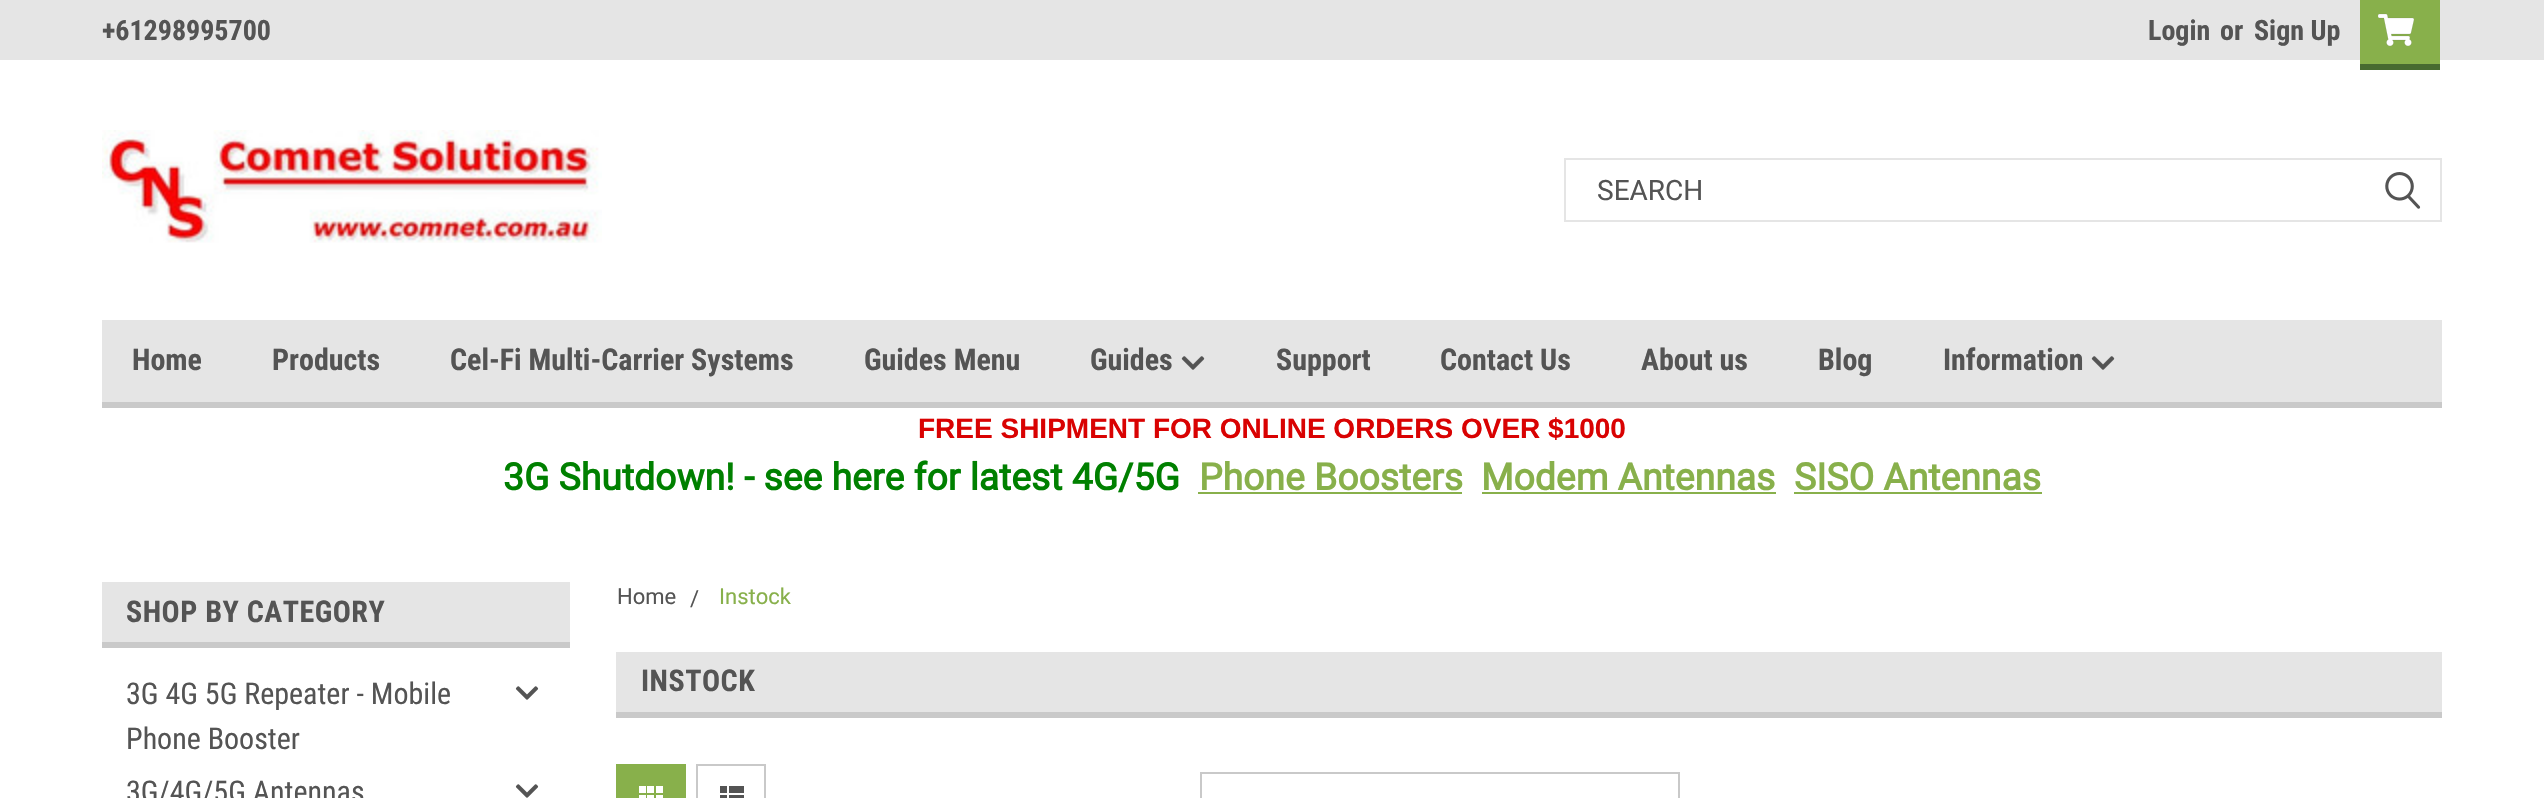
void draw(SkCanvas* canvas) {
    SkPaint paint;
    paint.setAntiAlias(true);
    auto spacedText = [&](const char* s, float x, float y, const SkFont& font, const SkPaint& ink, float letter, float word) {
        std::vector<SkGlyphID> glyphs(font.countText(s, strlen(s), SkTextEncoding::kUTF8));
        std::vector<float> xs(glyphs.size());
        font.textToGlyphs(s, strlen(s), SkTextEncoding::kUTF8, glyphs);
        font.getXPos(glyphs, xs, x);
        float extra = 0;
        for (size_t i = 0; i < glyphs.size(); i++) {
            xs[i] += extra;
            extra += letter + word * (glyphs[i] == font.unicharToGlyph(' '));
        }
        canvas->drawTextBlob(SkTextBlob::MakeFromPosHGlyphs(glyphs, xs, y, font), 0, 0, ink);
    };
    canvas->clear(0xFFFFFFFF);
    paint.setColor(0xFFE5E5E5);
    canvas->drawRect(SkRect::MakeXYWH(0, 0, 2544, 60), paint);
    SkFont font1(fontMgr->matchFamilyStyle("Roboto Condensed", SkFontStyle::Bold()), 28);
    font1.setSubpixel(true);
    paint.setColor(0xFF545454);
    canvas->drawString("+61298995700", 102, 40, font1, paint);
    canvas->drawString("Login", 2148, 40, font1, paint);
    canvas->drawString("or", 2220, 40, font1, paint);
    canvas->drawString("Sign Up", 2254, 40, font1, paint);
    paint.setColor(0xFF88B04B);
    canvas->drawRect(SkRect::MakeXYWH(2360, 0, 80, 64), paint);
    paint.setColor(0xFF476A30);
    canvas->drawRect(SkRect::MakeXYWH(2360, 64, 80, 6), paint);
    canvas->drawImageRect(SkImages::DeferredFromEncodedData(SkData::MakeFromFileName("img1.png")), SkRect::MakeXYWH(2378, 13, 36, 33), SkSamplingOptions());
    canvas->drawImageRect(SkImages::DeferredFromEncodedData(SkData::MakeFromFileName("img2.png")), SkRect::MakeXYWH(102, 130, 500, 113), SkSamplingOptions());
    paint.setStyle(SkPaint::kStroke_Style);
    paint.setStrokeWidth(2);
    paint.setColor(0xFFE5E5E5);
    canvas->drawRect(SkRect::MakeXYWH(1565, 159, 876, 62), paint);
    SkFont font2(fontMgr->matchFamilyStyle("Roboto", SkFontStyle::Normal()), 28);
    font2.setSubpixel(true);
    paint.setStyle(SkPaint::kFill_Style);
    paint.setColor(0xFF545454);
    canvas->drawString("SEARCH", 1597, 200, font2, paint);
    canvas->drawImageRect(SkImages::DeferredFromEncodedData(SkData::MakeFromFileName("img3.png")), SkRect::MakeXYWH(2385, 172, 36, 37), SkSamplingOptions());
    paint.setColor(0xFFE5E5E5);
    canvas->drawRect(SkRect::MakeXYWH(102, 320, 2340, 82), paint);
    paint.setColor(0xFFC9C9C9);
    canvas->drawRect(SkRect::MakeXYWH(102, 402, 2340, 6), paint);
    SkFont font3(fontMgr->matchFamilyStyle("Roboto Condensed", SkFontStyle::Bold()), 30);
    font3.setSubpixel(true);
    paint.setColor(0xFF545454);
    canvas->drawString("Home", 132, 370, font3, paint);
    canvas->drawString("Products", 272, 370, font3, paint);
    canvas->drawString("Cel-Fi Multi-Carrier Systems", 450, 370, font3, paint);
    canvas->drawString("Guides Menu", 864, 370, font3, paint);
    canvas->drawString("Guides", 1090, 370, font3, paint);
    canvas->drawImageRect(SkImages::DeferredFromEncodedData(SkData::MakeFromFileName("img4.png")), SkRect::MakeXYWH(1181, 356, 24, 14), SkSamplingOptions());
    canvas->drawString("Support", 1276, 370, font3, paint);
    canvas->drawString("Contact Us", 1440, 370, font3, paint);
    canvas->drawString("About us", 1641, 370, font3, paint);
    canvas->drawString("Blog", 1818, 370, font3, paint);
    canvas->drawString("Information", 1943, 370, font3, paint);
    canvas->drawImageRect(SkImages::DeferredFromEncodedData(SkData::MakeFromFileName("img4.png")), SkRect::MakeXYWH(2091, 356, 24, 14), SkSamplingOptions());
    SkFont font4(fontMgr->matchFamilyStyle("Liberation Sans", SkFontStyle::Bold()), 28);
    font4.setSubpixel(true);
    paint.setColor(0xFFD90202);
    canvas->drawString("FREE SHIPMENT FOR ONLINE ORDERS OVER $1000", 918, 438, font4, paint);
    SkFont font5(fontMgr->matchFamilyStyle("Roboto", SkFontStyle::Bold()), 37.3f);
    font5.setSubpixel(true);
    paint.setColor(0xFF008000);
    canvas->drawString("3G Shutdown! - see here for latest 4G/5G", 503, 490, font5, paint);
    paint.setColor(0xFF88B04B);
    canvas->drawString("Phone Boosters", 1199, 490, font5, paint);
    canvas->drawRect(SkRect::MakeXYWH(1198, 492, 264, 2), paint);
    canvas->drawString("Modem Antennas", 1481, 490, font5, paint);
    canvas->drawRect(SkRect::MakeXYWH(1482, 492, 294, 2), paint);
    canvas->drawString("SISO Antennas", 1794, 490, font5, paint);
    canvas->drawRect(SkRect::MakeXYWH(1794, 492, 248, 2), paint);
    paint.setColor(0xFFE5E5E5);
    canvas->drawRect(SkRect::MakeXYWH(102, 582, 468, 60), paint);
    paint.setColor(0xFFC9C9C9);
    canvas->drawRect(SkRect::MakeXYWH(102, 642, 468, 6), paint);
    paint.setColor(0xFF545454);
    spacedText("SHOP BY CATEGORY", 126, 622, font3, paint, 0.5f, 0);
    SkFont font6(fontMgr->matchFamilyStyle("Roboto Condensed", SkFontStyle::Normal()), 30);
    font6.setSubpixel(true);
    canvas->drawString("3G 4G 5G Repeater - Mobile", 126, 704, font6, paint);
    canvas->drawString("Phone Booster", 126, 749, font6, paint);
    canvas->drawImageRect(SkImages::DeferredFromEncodedData(SkData::MakeFromFileName("img5.png")), SkRect::MakeXYWH(515, 686, 24, 14), SkSamplingOptions());
    canvas->drawString("3G/4G/5G Antennas", 126, 802, font6, paint);
    canvas->drawImageRect(SkImages::DeferredFromEncodedData(SkData::MakeFromFileName("img5.png")), SkRect::MakeXYWH(515, 784, 24, 14), SkSamplingOptions());
    SkFont font7(fontMgr->matchFamilyStyle("Roboto", SkFontStyle::Normal()), 22);
    font7.setSubpixel(true);
    canvas->drawString("Home", 617, 604, font7, paint);
    canvas->drawString("/", 690, 606, font7, paint);
    paint.setColor(0xFF88B04B);
    canvas->drawString("Instock", 719, 604, font7, paint);
    paint.setColor(0xFFE5E5E5);
    canvas->drawRect(SkRect::MakeXYWH(616, 652, 1826, 60), paint);
    paint.setColor(0xFFC9C9C9);
    canvas->drawRect(SkRect::MakeXYWH(616, 712, 1826, 6), paint);
    paint.setColor(0xFF545454);
    spacedText("INSTOCK", 641, 691, font3, paint, 0.5f, 0);
    paint.setColor(0xFF88B04B);
    canvas->drawRect(SkRect::MakeXYWH(616, 764, 70, 34), paint);
    canvas->drawImageRect(SkImages::DeferredFromEncodedData(SkData::MakeFromFileName("img6.png")), SkRect::MakeXYWH(639, 786, 24, 12), SkSamplingOptions());
    paint.setStyle(SkPaint::kStroke_Style);
    paint.setColor(0xFFC9C9C9);
    canvas->drawRect(SkRect::MakeXYWH(697, 765, 68, 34), paint);
    canvas->drawImageRect(SkImages::DeferredFromEncodedData(SkData::MakeFromFileName("img7.png")), SkRect::MakeXYWH(720, 786, 24, 12), SkSamplingOptions());
    canvas->drawRect(SkRect::MakeXYWH(1201, 773, 478, 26), paint);
}
